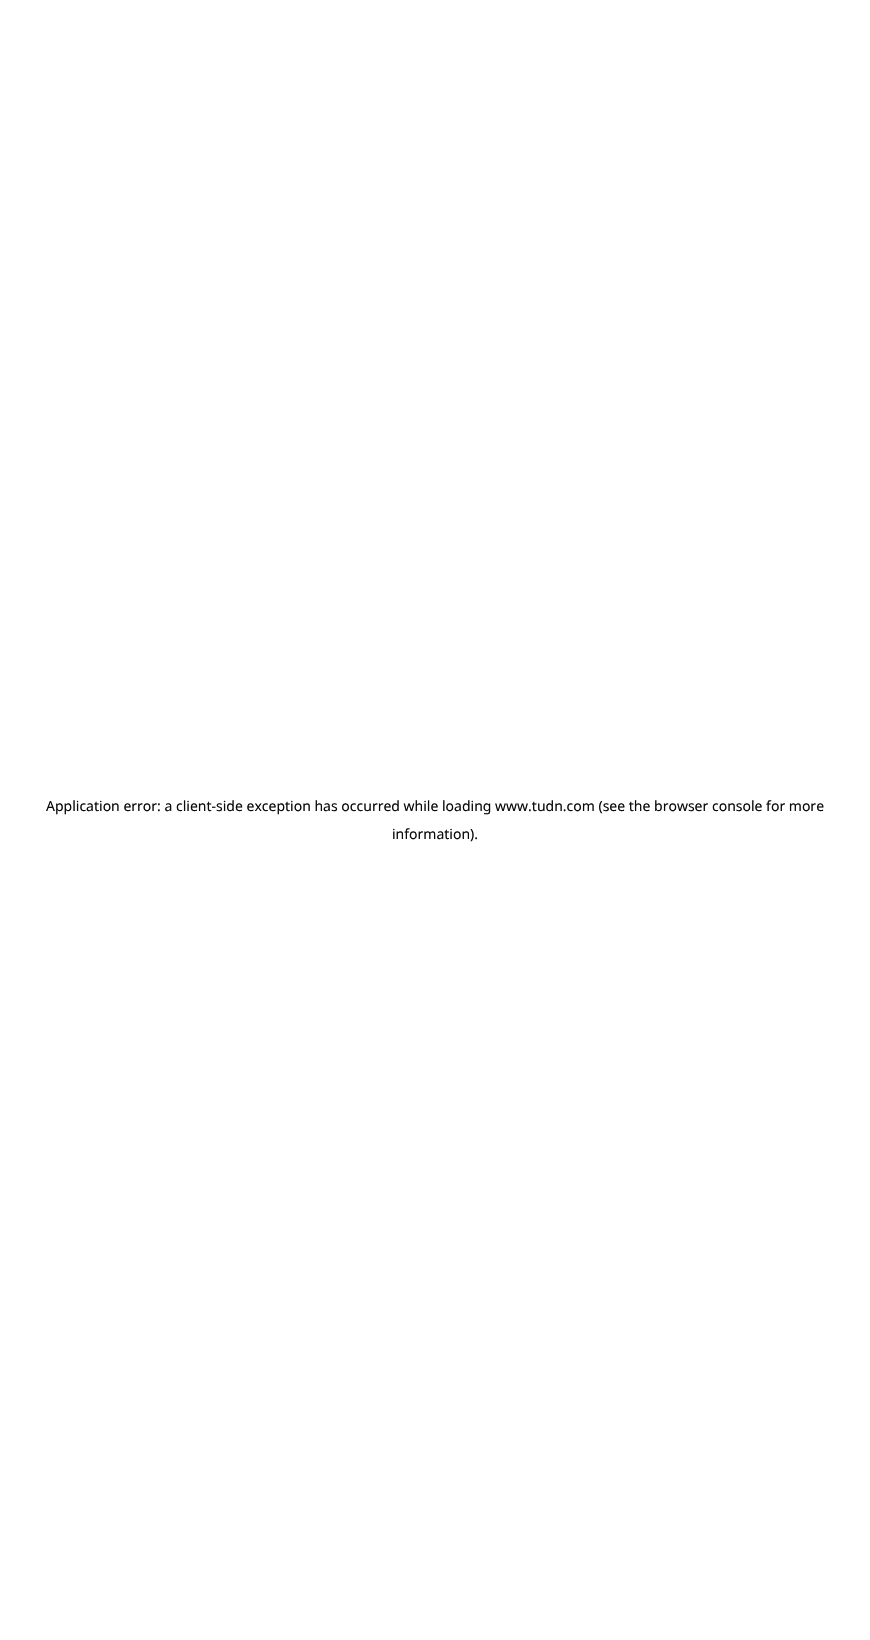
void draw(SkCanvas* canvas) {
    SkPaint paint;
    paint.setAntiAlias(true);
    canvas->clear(0xFFFFFFFF);
    SkFont font1(fontMgr->matchFamilyStyle("Noto Sans", SkFontStyle::Normal()), 14);
    font1.setSubpixel(true);
    paint.setColor(0xFF0A0B0B);
    canvas->drawString("Application error: a client-side exception has occurred while loading www.tudn.com (see the browser console for more", 46, 811, font1, paint);
    canvas->drawString("information).", 392, 839, font1, paint);
}
